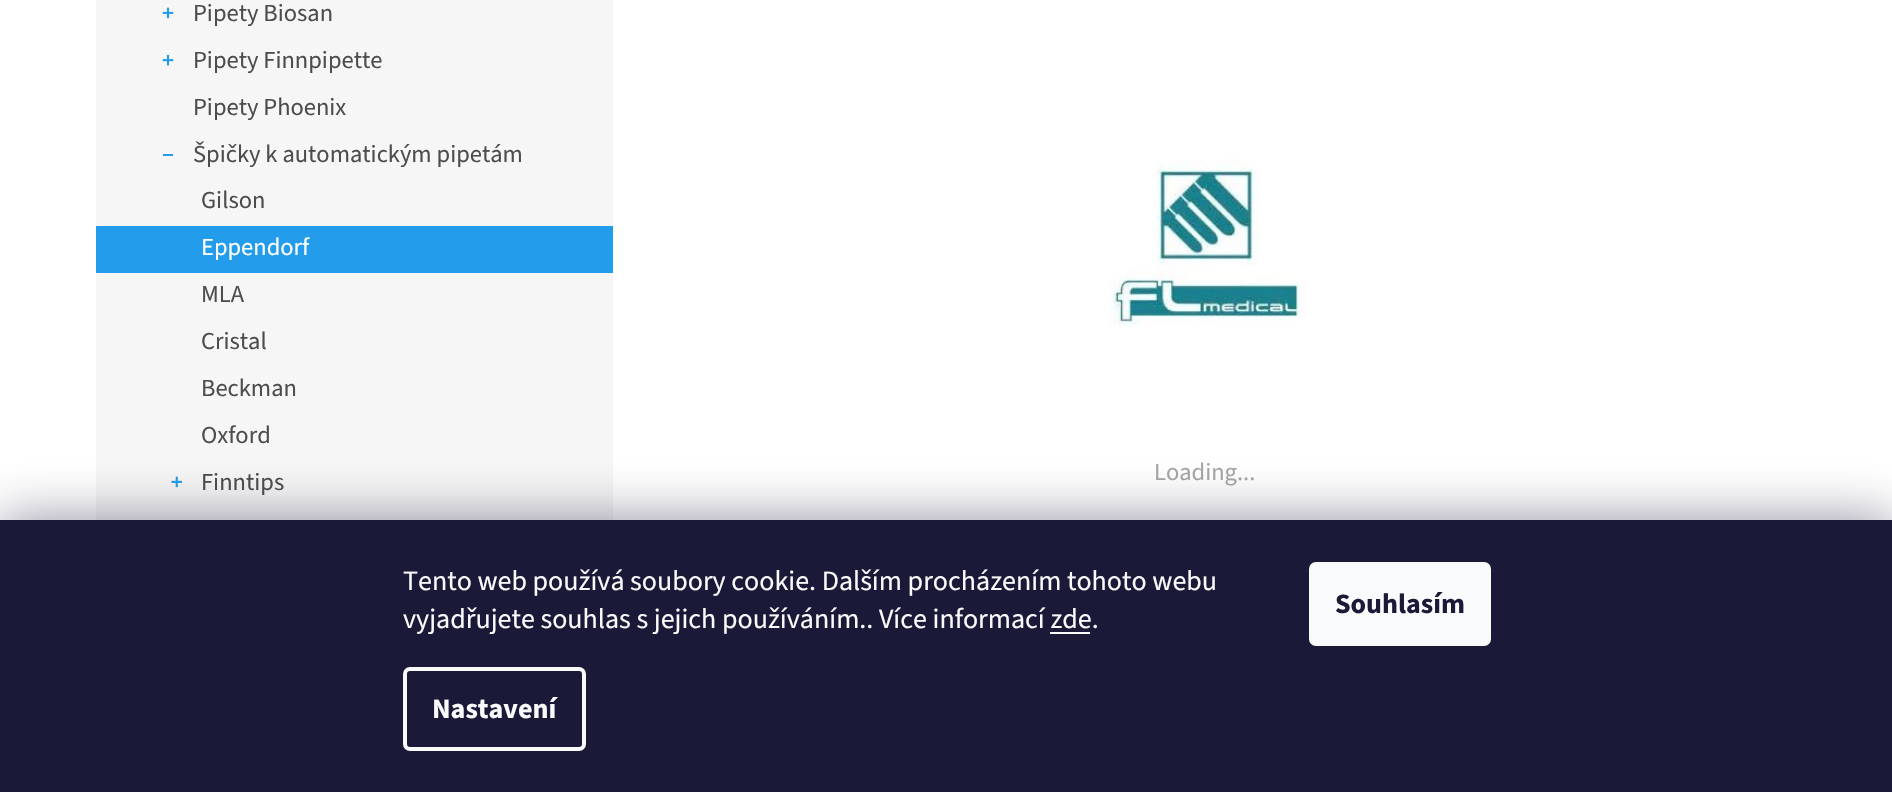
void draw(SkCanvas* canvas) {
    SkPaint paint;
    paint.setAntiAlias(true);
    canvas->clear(0xFFFFFFFF);
    paint.setColor(0xFFF6F6F6);
    canvas->drawRect(SkRect::MakeXYWH(96, 0, 517, 520), paint);
    canvas->drawImageRect(SkImages::DeferredFromEncodedData(SkData::MakeFromFileName("img1.png")), SkRect::MakeXYWH(162, 7, 12, 12), SkSamplingOptions());
    SkFont font1(fontMgr->matchFamilyStyle("Source Sans 3", SkFontStyle::Normal()), 24.5f);
    font1.setSubpixel(true);
    paint.setColor(0xFF4D4D4D);
    canvas->drawString("Pipety Biosan", 193, 21, font1, paint);
    canvas->drawImageRect(SkImages::DeferredFromEncodedData(SkData::MakeFromFileName("img2.png")), SkRect::MakeXYWH(162, 54, 12, 12), SkSamplingOptions());
    canvas->drawString("Pipety Finnpipette", 193, 68, font1, paint);
    canvas->drawString("Pipety Phoenix", 193, 115, font1, paint);
    paint.setColor(0xFF239CEB);
    canvas->drawRect(SkRect::MakeXYWH(163, 154, 10, 2), paint);
    paint.setColor(0xFF4D4D4D);
    canvas->drawString("Špičky k automatickým pipetám", 193, 162, font1, paint);
    canvas->drawString("Gilson", 201, 208, font1, paint);
    paint.setColor(0xFF239CEB);
    canvas->drawRect(SkRect::MakeXYWH(96, 226, 517, 47), paint);
    paint.setColor(0xFFFFFFFF);
    canvas->drawString("Eppendorf", 201, 255, font1, paint);
    paint.setColor(0xFF4D4D4D);
    canvas->drawString("MLA", 201, 302, font1, paint);
    canvas->drawString("Cristal", 201, 349, font1, paint);
    canvas->drawString("Beckman", 201, 396, font1, paint);
    canvas->drawString("Oxford", 201, 443, font1, paint);
    canvas->drawImageRect(SkImages::DeferredFromEncodedData(SkData::MakeFromFileName("img3.png")), SkRect::MakeXYWH(171, 476, 11, 12), SkSamplingOptions());
    canvas->drawString("Finntips", 201, 490, font1, paint);
    canvas->drawImageRect(SkImages::DeferredFromEncodedData(SkData::MakeFromFileName("img4.png")), SkRect::MakeXYWH(1109, 159, 200, 168), SkSamplingOptions());
    paint.setColor(0xFFA6A6A6);
    canvas->drawString("Loading...", 1154, 480, font1, paint);
    paint.setColor(0x801B1939);
    paint.setMaskFilter(SkMaskFilter::MakeBlur(kNormal_SkBlurStyle, 26));
    canvas->drawRect(SkRect::MakeXYWH(0, 520, 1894, 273), paint);
    paint.setMaskFilter(nullptr);
    paint.setColor(0xFF1A1937);
    canvas->drawRect(SkRect::MakeXYWH(0, 520, 1892, 272), paint);
    SkFont font2(fontMgr->matchFamilyStyle("Source Sans 3", SkFontStyle::Normal()), 28);
    font2.setSubpixel(true);
    paint.setColor(0xFFF8FAFB);
    canvas->drawString("Tento web používá soubory cookie. Dalším procházením tohoto webu", 403, 590, font2, paint);
    canvas->drawString("vyjadřujete souhlas s jejich používáním.. Více informací zde.", 403, 628, font2, paint);
    canvas->drawRect(SkRect::MakeXYWH(1050, 632, 40, 2), paint);
    paint.setStyle(SkPaint::kStroke_Style);
    paint.setStrokeWidth(4);
    canvas->drawRoundRect(SkRect::MakeXYWH(405, 669, 179, 80), 5, 5, paint);
    SkFont font3(fontMgr->matchFamilyStyle("Source Sans 3", SkFontStyle::Bold()), 28);
    font3.setSubpixel(true);
    paint.setStyle(SkPaint::kFill_Style);
    canvas->drawString("Nastavení", 432, 718, font3, paint);
    canvas->drawRoundRect(SkRect::MakeXYWH(1309, 562, 182, 84), 7, 7, paint);
    paint.setColor(0xFF1A1937);
    canvas->drawString("Souhlasím", 1335, 613, font3, paint);
}
